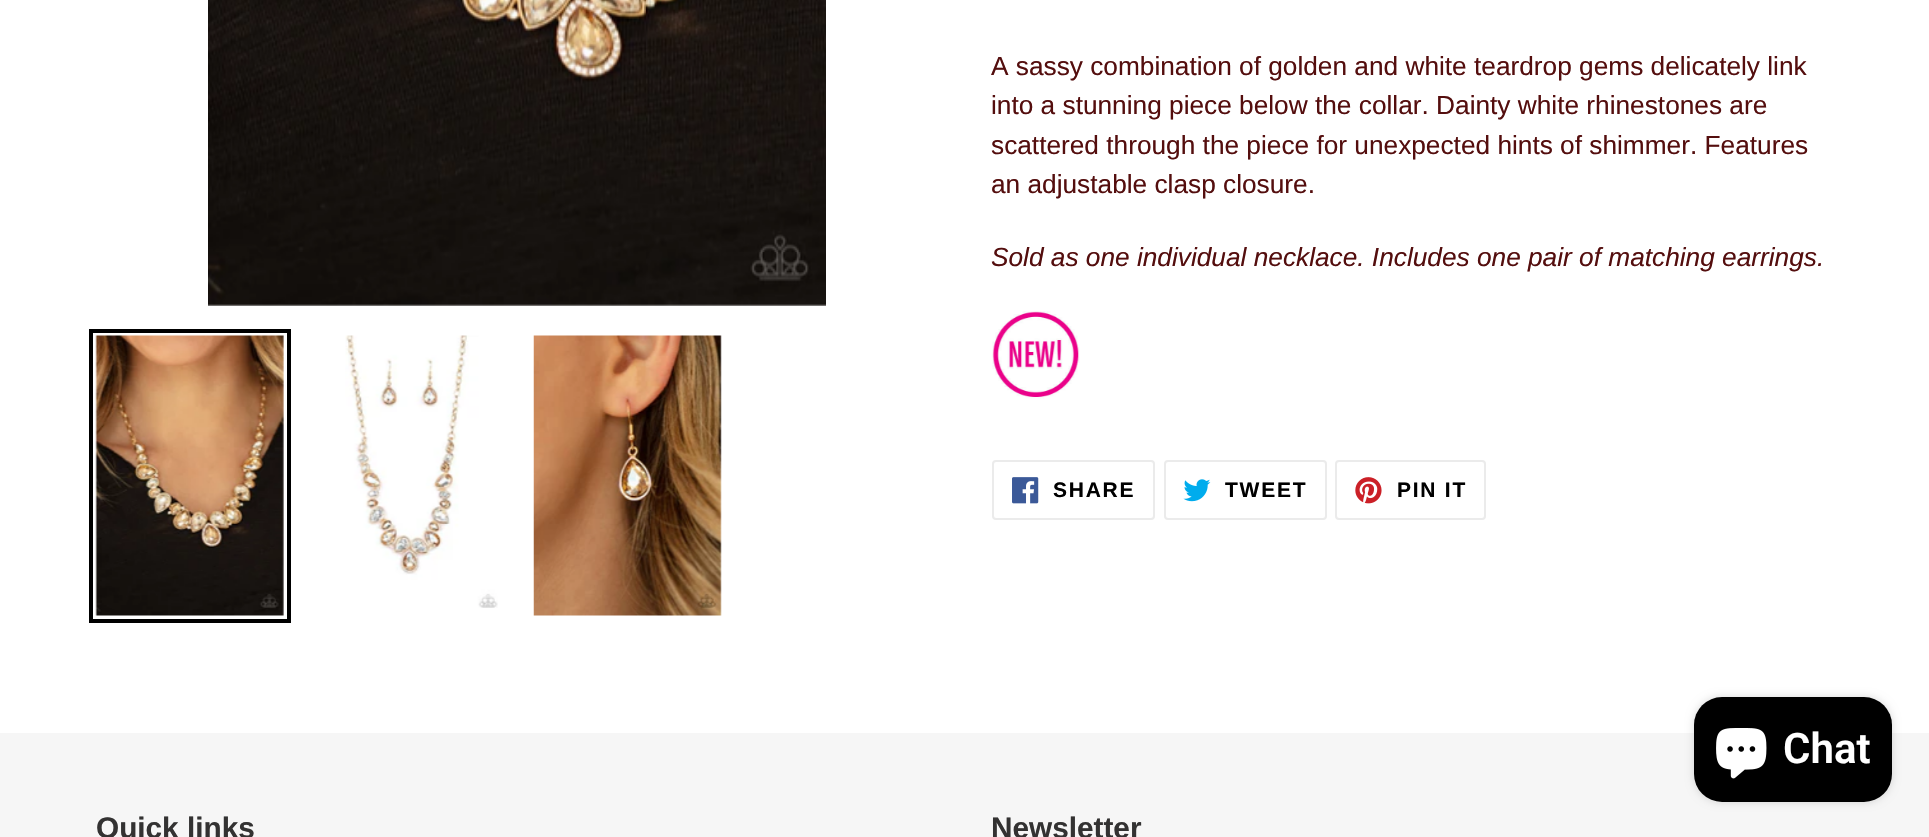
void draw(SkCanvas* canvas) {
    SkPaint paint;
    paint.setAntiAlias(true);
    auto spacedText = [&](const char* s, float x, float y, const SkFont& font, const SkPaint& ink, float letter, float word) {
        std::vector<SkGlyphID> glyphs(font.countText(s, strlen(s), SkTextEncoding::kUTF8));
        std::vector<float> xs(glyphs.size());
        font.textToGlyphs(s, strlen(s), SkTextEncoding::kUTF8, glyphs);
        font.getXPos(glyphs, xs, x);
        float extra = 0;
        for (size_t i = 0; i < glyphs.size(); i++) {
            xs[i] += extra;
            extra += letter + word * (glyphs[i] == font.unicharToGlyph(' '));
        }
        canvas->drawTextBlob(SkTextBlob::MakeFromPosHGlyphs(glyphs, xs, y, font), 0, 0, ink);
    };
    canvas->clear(0xFFFFFFFF);
    canvas->drawImageRect(SkImages::DeferredFromEncodedData(SkData::MakeFromFileName("img1.png")), SkRect::MakeXYWH(208, 0, 618, 306), SkSamplingOptions());
    paint.setStyle(SkPaint::kStroke_Style);
    paint.setStrokeWidth(4);
    paint.setColor(0xFF000000);
    canvas->drawRect(SkRect::MakeXYWH(91, 331, 198, 290), paint);
    canvas->drawImageRect(SkImages::DeferredFromEncodedData(SkData::MakeFromFileName("img2.png")), SkRect::MakeXYWH(95, 335, 189, 281), SkSamplingOptions());
    canvas->drawImageRect(SkImages::DeferredFromEncodedData(SkData::MakeFromFileName("img3.png")), SkRect::MakeXYWH(345, 335, 153, 273), SkSamplingOptions());
    canvas->drawImageRect(SkImages::DeferredFromEncodedData(SkData::MakeFromFileName("img4.png")), SkRect::MakeXYWH(533, 335, 189, 281), SkSamplingOptions());
    SkFont font1(fontMgr->matchFamilyStyle("Liberation Sans", SkFontStyle::Normal()), 26.25f);
    font1.setSubpixel(true);
    paint.setStyle(SkPaint::kFill_Style);
    paint.setColor(0xFF540E0E);
    canvas->drawString("A sassy combination of golden and white teardrop gems delicately link", 991, 75, font1, paint);
    canvas->drawString("into a stunning piece below the collar. Dainty white rhinestones are", 991, 114, font1, paint);
    canvas->drawString("scattered through the piece for unexpected hints of shimmer. Features", 991, 154, font1, paint);
    canvas->drawString("an adjustable clasp closure.", 991, 193, font1, paint);
    SkFont font2(fontMgr->matchFamilyStyle("Liberation Sans", SkFontStyle::Italic()), 26.25f);
    font2.setSubpixel(true);
    canvas->drawString("Sold as one individual necklace. Includes one pair of matching earrings.", 991, 266, font2, paint);
    canvas->drawImageRect(SkImages::DeferredFromEncodedData(SkData::MakeFromFileName("img5.png")), SkRect::MakeXYWH(992, 311, 88, 88), SkSamplingOptions());
    paint.setStyle(SkPaint::kStroke_Style);
    paint.setStrokeWidth(2);
    paint.setColor(0xFFEBEBEB);
    canvas->drawRoundRect(SkRect::MakeXYWH(993, 461, 161, 58), 3, 3, paint);
    canvas->drawImageRect(SkImages::DeferredFromEncodedData(SkData::MakeFromFileName("img6.png")), SkRect::MakeXYWH(1012, 477, 27, 27), SkSamplingOptions());
    SkFont font3(fontMgr->matchFamilyStyle("Liberation Sans", SkFontStyle::Bold()), 21);
    font3.setSubpixel(true);
    paint.setStyle(SkPaint::kFill_Style);
    paint.setColor(0xFF000000);
    spacedText("SHARE", 1053, 497, font3, paint, 1.75f, 0);
    paint.setStyle(SkPaint::kStroke_Style);
    paint.setColor(0xFFEBEBEB);
    canvas->drawRoundRect(SkRect::MakeXYWH(1165, 461, 161, 58), 3, 3, paint);
    canvas->drawImageRect(SkImages::DeferredFromEncodedData(SkData::MakeFromFileName("img7.png")), SkRect::MakeXYWH(1183, 479, 28, 23), SkSamplingOptions());
    paint.setStyle(SkPaint::kFill_Style);
    paint.setColor(0xFF000000);
    spacedText("TWEET", 1225, 497, font3, paint, 1.75f, 0);
    paint.setStyle(SkPaint::kStroke_Style);
    paint.setColor(0xFFEBEBEB);
    canvas->drawRoundRect(SkRect::MakeXYWH(1336, 461, 149, 58), 3, 3, paint);
    canvas->drawImageRect(SkImages::DeferredFromEncodedData(SkData::MakeFromFileName("img8.png")), SkRect::MakeXYWH(1355, 477, 27, 27), SkSamplingOptions());
    paint.setStyle(SkPaint::kFill_Style);
    paint.setColor(0xFF000000);
    spacedText("PIN IT", 1397, 497, font3, paint, 1.75f, 0);
    paint.setColor(0xFFF6F6F6);
    canvas->drawRect(SkRect::MakeXYWH(0, 733, 1929, 104), paint);
    SkFont font4(fontMgr->matchFamilyStyle("Liberation Sans", SkFontStyle::Bold()), 29.75f);
    font4.setSubpixel(true);
    paint.setColor(0xFF333232);
    canvas->drawString("Quick links", 96, 838, font4, paint);
    canvas->drawString("Newsletter", 991, 838, font4, paint);
    paint.setColor(0x26000000);
    paint.setMaskFilter(SkMaskFilter::MakeBlur(kNormal_SkBlurStyle, 4.5f));
    canvas->drawRoundRect(SkRect::MakeXYWH(1694, 697, 198, 105), 28, 28, paint);
    paint.setMaskFilter(nullptr);
    paint.setColor(0xFF000000);
    canvas->drawRoundRect(SkRect::MakeXYWH(1694, 697, 198, 105), 28, 28, paint);
    canvas->drawImageRect(SkImages::DeferredFromEncodedData(SkData::MakeFromFileName("img9.png")), SkRect::MakeXYWH(1716, 728, 51, 51), SkSamplingOptions());
    SkFont font5(fontMgr->matchFamilyStyle("Roboto", SkFontStyle(600, SkFontStyle::kNormal_Width, SkFontStyle::kUpright_Slant)), 42);
    font5.setSubpixel(true);
    paint.setColor(0xFFFFFFFF);
    canvas->drawString("Chat", 1783, 763, font5, paint);
}
